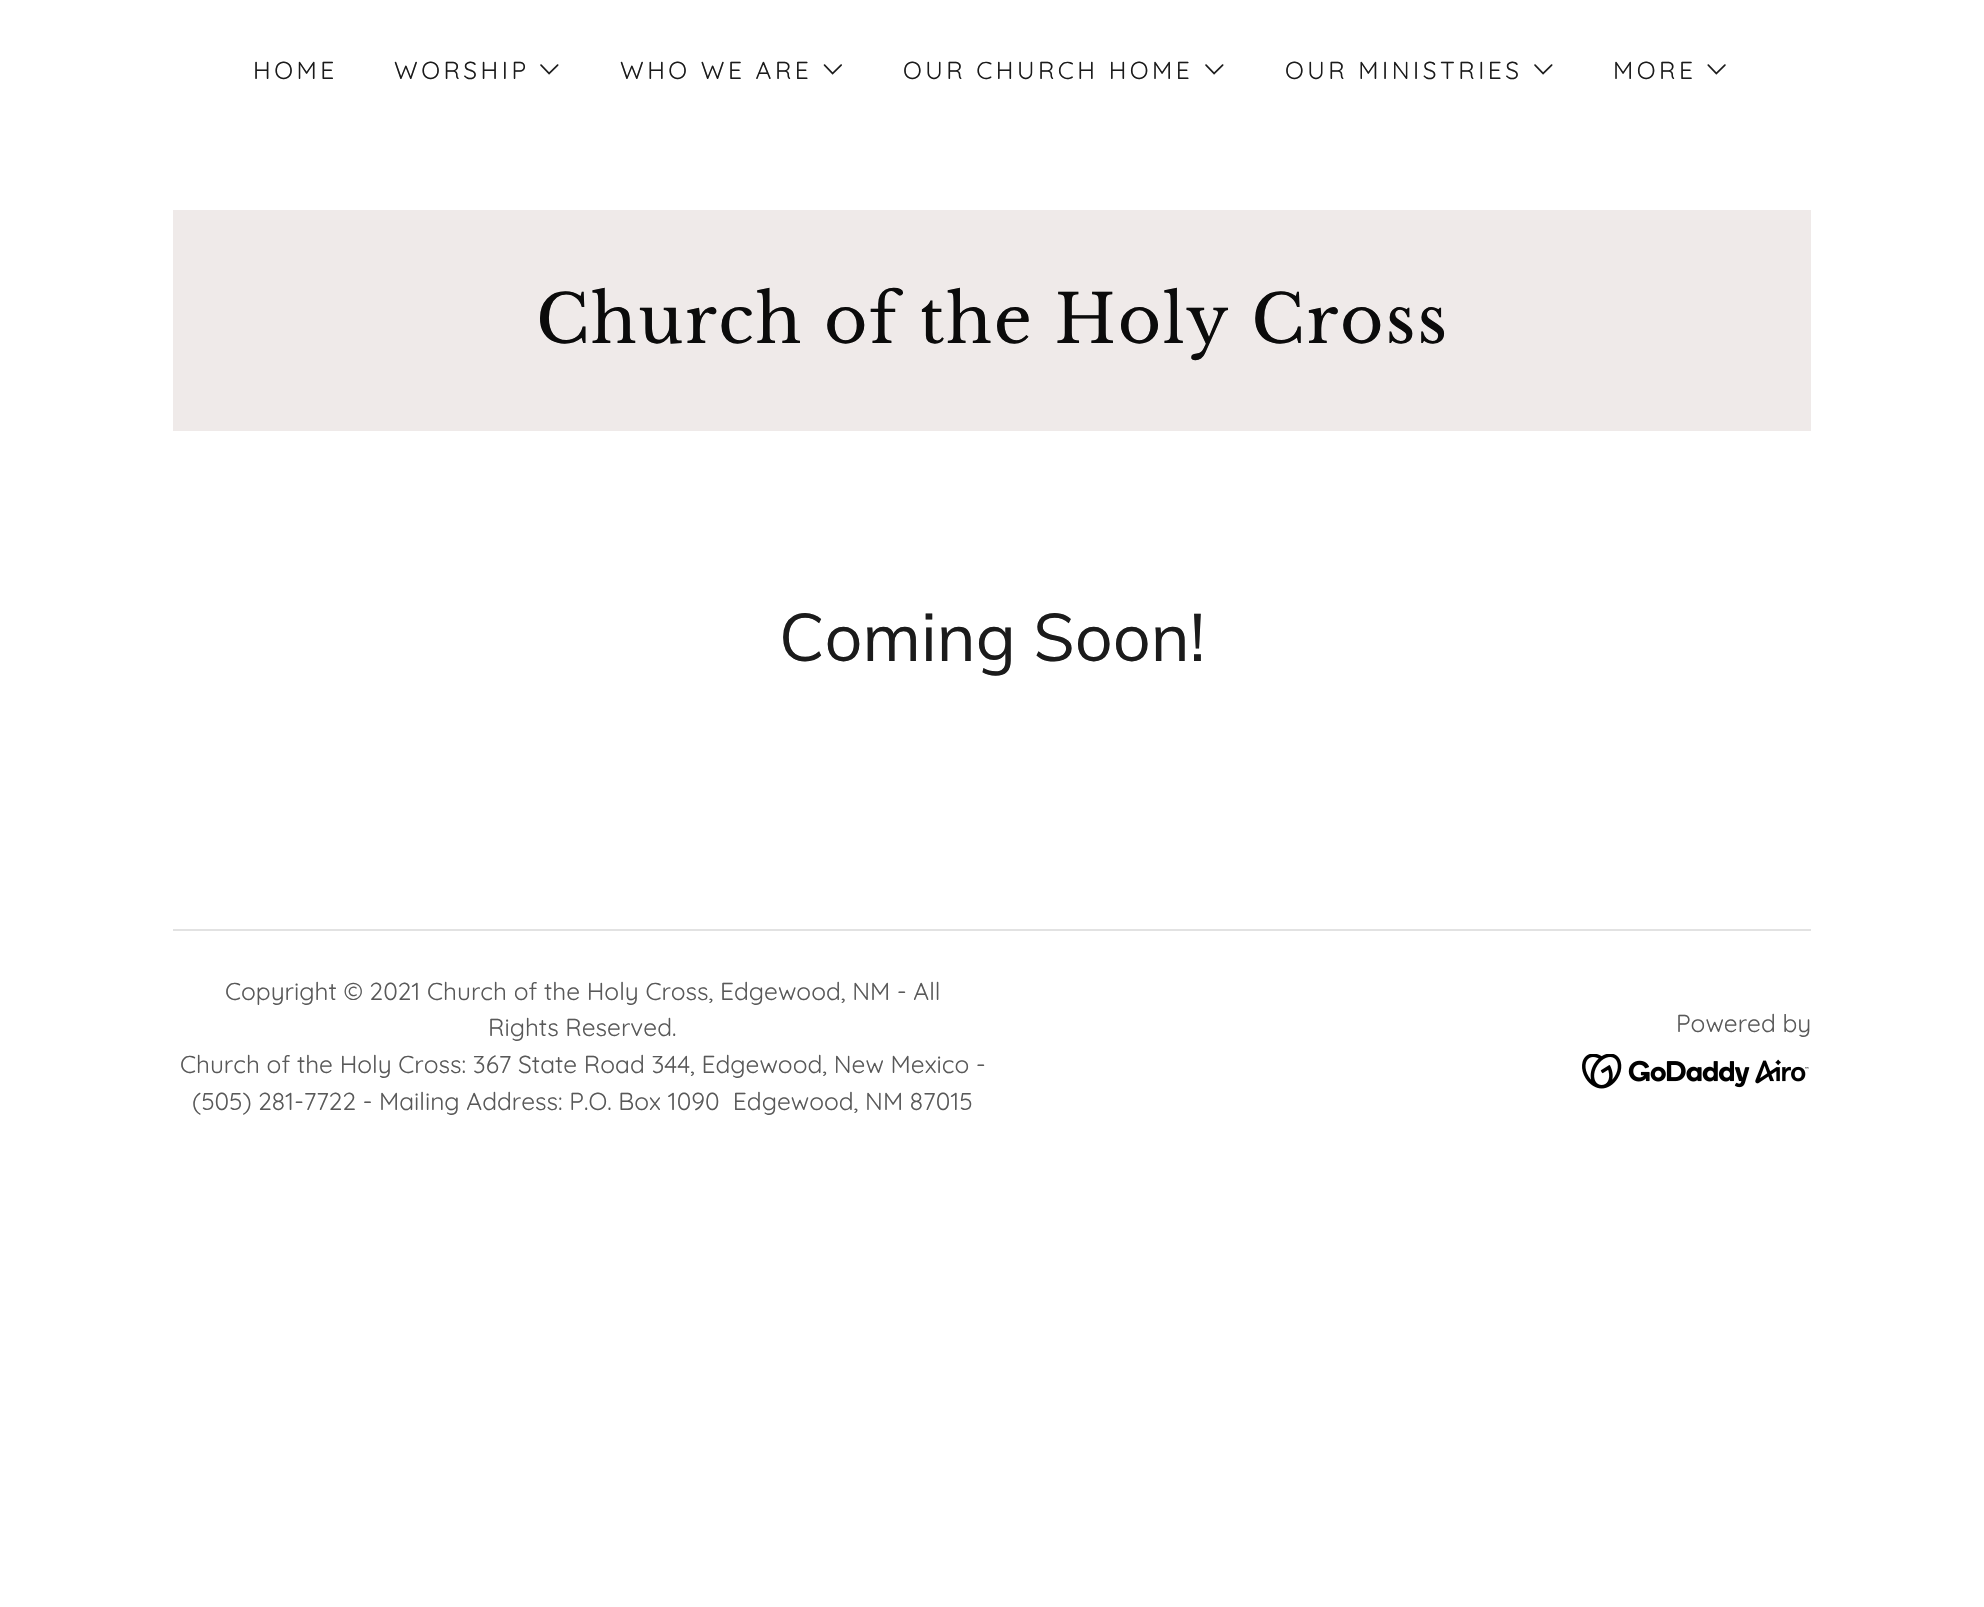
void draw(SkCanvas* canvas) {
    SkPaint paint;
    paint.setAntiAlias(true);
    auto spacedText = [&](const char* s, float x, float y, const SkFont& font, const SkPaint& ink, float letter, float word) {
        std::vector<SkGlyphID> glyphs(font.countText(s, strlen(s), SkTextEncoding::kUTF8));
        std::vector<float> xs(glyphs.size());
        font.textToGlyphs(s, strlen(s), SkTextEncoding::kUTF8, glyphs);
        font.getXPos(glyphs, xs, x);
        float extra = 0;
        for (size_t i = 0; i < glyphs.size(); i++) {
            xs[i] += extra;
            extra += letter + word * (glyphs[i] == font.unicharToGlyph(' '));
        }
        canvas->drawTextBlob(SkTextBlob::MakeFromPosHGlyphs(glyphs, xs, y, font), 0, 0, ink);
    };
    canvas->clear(0xFFFFFFFF);
    SkFont font1(fontMgr->matchFamilyStyle("Quicksand", SkFontStyle::Normal()), 24.5f);
    font1.setSubpixel(true);
    paint.setColor(0xFF1B1B1B);
    spacedText("HOME", 253, 79, font1, paint, 3.5f, 0);
    spacedText("WORSHIP", 394, 79, font1, paint, 3.5f, 0);
    canvas->drawImageRect(SkImages::DeferredFromEncodedData(SkData::MakeFromFileName("img1.png")), SkRect::MakeXYWH(540, 64, 19, 11), SkSamplingOptions());
    spacedText("WHO WE ARE", 620, 79, font1, paint, 3.5f, 0);
    canvas->drawImageRect(SkImages::DeferredFromEncodedData(SkData::MakeFromFileName("img2.png")), SkRect::MakeXYWH(823, 64, 19, 11), SkSamplingOptions());
    spacedText("OUR CHURCH HOME", 903, 79, font1, paint, 3.5f, 0);
    canvas->drawImageRect(SkImages::DeferredFromEncodedData(SkData::MakeFromFileName("img1.png")), SkRect::MakeXYWH(1205, 64, 19, 11), SkSamplingOptions());
    spacedText("OUR MINISTRIES", 1285, 79, font1, paint, 3.5f, 0);
    canvas->drawImageRect(SkImages::DeferredFromEncodedData(SkData::MakeFromFileName("img1.png")), SkRect::MakeXYWH(1534, 64, 19, 11), SkSamplingOptions());
    spacedText("MORE", 1613, 79, font1, paint, 3.5f, 0);
    canvas->drawImageRect(SkImages::DeferredFromEncodedData(SkData::MakeFromFileName("img3.png")), SkRect::MakeXYWH(1707, 64, 19, 11), SkSamplingOptions());
    paint.setColor(0xFFEFEAE9);
    canvas->drawRect(SkRect::MakeXYWH(173, 210, 1638, 221), paint);
    SkFont font2(fontMgr->matchFamilyStyle("Libre Baskerville", SkFontStyle::Normal()), 66.5f);
    font2.setSubpixel(true);
    paint.setColor(0xFF0B0B0B);
    spacedText("Church of the Holy Cross", 536, 343, font2, paint, 1.75f, 0);
    SkFont font3(fontMgr->matchFamilyStyle("Muli", SkFontStyle::Normal()), 66.5f);
    font3.setSubpixel(true);
    paint.setColor(0xFF1B1B1B);
    canvas->drawString("Coming Soon!", 779, 661, font3, paint);
    paint.setColor(0xFFE2E2E2);
    canvas->drawRect(SkRect::MakeXYWH(173, 929, 1638, 2), paint);
    paint.setColor(0xFF595959);
    canvas->drawString("Copyright © 2021 Church of the Holy Cross, Edgewood, NM - All", 225, 1000, font1, paint);
    canvas->drawString("Rights Reserved.", 488, 1036, font1, paint);
    canvas->drawString("Church of the Holy Cross: 367 State Road 344, Edgewood, New Mexico -", 180, 1073, font1, paint);
    canvas->drawString("(505) 281-7722 - Mailing Address: P.O. Box 1090  Edgewood, NM 87015", 192, 1110, font1, paint);
    canvas->drawString("Powered by", 1676, 1032, font1, paint);
    canvas->drawImageRect(SkImages::DeferredFromEncodedData(SkData::MakeFromFileName("img4.png")), SkRect::MakeXYWH(1582, 1054, 227, 35), SkSamplingOptions());
}
